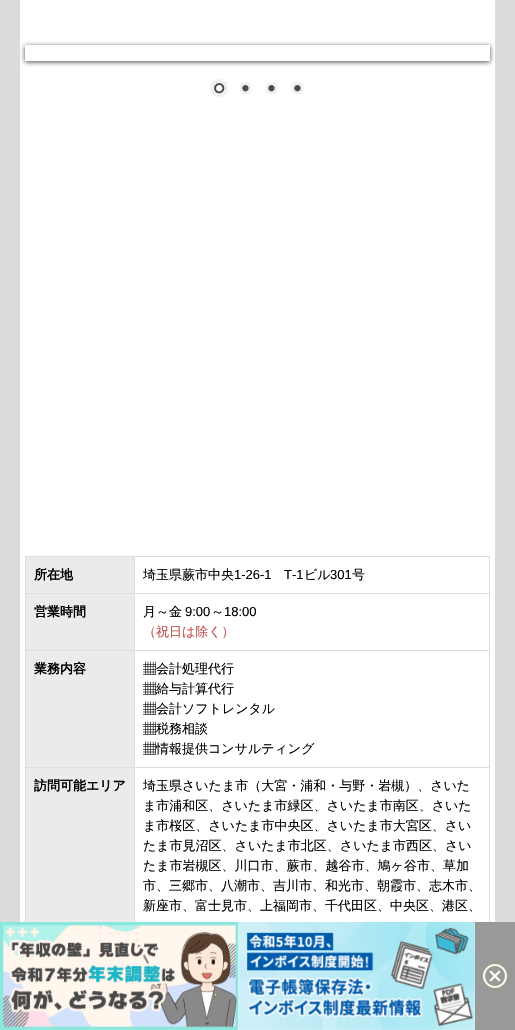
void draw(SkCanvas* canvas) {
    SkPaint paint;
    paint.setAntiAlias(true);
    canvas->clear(0xFFDBDBDB);
    paint.setColor(0xFFFFFFFF);
    canvas->drawRect(SkRect::MakeXYWH(20, 0, 475, 1030), paint);
    canvas->save();
    canvas->clipPath(SkPathBuilder(SkPathFillType::kEvenOdd).moveTo(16, 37).lineTo(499, 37).lineTo(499, 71).lineTo(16, 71).close().moveTo(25, 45).lineTo(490, 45).lineTo(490, 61).lineTo(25, 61).close().detach(), true);
    paint.setColor(0xFF4A4A4A);
    paint.setMaskFilter(SkMaskFilter::MakeBlur(kNormal_SkBlurStyle, 2.5f));
    canvas->drawRect(SkRect::MakeXYWH(25, 46, 465, 16), paint);
    paint.setMaskFilter(nullptr);
    canvas->restore();
    canvas->drawImageRect(SkImages::DeferredFromEncodedData(SkData::MakeFromFileName("img1.png")), SkRect::MakeXYWH(210, 79, 18, 18), SkSamplingOptions());
    canvas->drawImageRect(SkImages::DeferredFromEncodedData(SkData::MakeFromFileName("img2.png")), SkRect::MakeXYWH(239, 82, 13, 12), SkSamplingOptions());
    canvas->drawImageRect(SkImages::DeferredFromEncodedData(SkData::MakeFromFileName("img2.png")), SkRect::MakeXYWH(265, 82, 13, 12), SkSamplingOptions());
    canvas->drawImageRect(SkImages::DeferredFromEncodedData(SkData::MakeFromFileName("img2.png")), SkRect::MakeXYWH(291, 82, 13, 12), SkSamplingOptions());
    paint.setColor(0xFFEBEBEB);
    canvas->drawRect(SkRect::MakeXYWH(26, 557, 108, 36), paint);
    paint.setColor(0xFFDEDEDE);
    canvas->drawRect(SkRect::MakeXYWH(134, 556, 356, 1), paint);
    canvas->drawRect(SkRect::MakeXYWH(134, 593, 356, 1), paint);
    canvas->drawRect(SkRect::MakeXYWH(134, 650, 356, 1), paint);
    canvas->drawRect(SkRect::MakeXYWH(134, 767, 356, 1), paint);
    canvas->drawRect(SkRect::MakeXYWH(134, 767, 1, 155), paint);
    canvas->drawRect(SkRect::MakeXYWH(25, 767, 110, 1), paint);
    canvas->drawRect(SkRect::MakeXYWH(134, 650, 1, 118), paint);
    canvas->drawRect(SkRect::MakeXYWH(25, 650, 110, 1), paint);
    canvas->drawRect(SkRect::MakeXYWH(134, 593, 1, 58), paint);
    canvas->drawRect(SkRect::MakeXYWH(25, 593, 110, 1), paint);
    canvas->drawRect(SkRect::MakeXYWH(134, 556, 1, 38), paint);
    canvas->drawRect(SkRect::MakeXYWH(25, 556, 110, 1), paint);
    canvas->drawRect(SkRect::MakeXYWH(25, 767, 1, 155), paint);
    canvas->drawRect(SkRect::MakeXYWH(25, 650, 1, 118), paint);
    canvas->drawRect(SkRect::MakeXYWH(25, 593, 1, 58), paint);
    canvas->drawRect(SkRect::MakeXYWH(25, 556, 1, 38), paint);
    SkFont font1(fontMgr->matchFamilyStyle("WenQuanYi Zen Hei", SkFontStyle::Bold()), 13);
    font1.setSubpixel(true);
    paint.setColor(0xFF000000);
    canvas->drawString("所在地", 34, 579, font1, paint);
    paint.setColor(0xFFDEDEDE);
    canvas->drawRect(SkRect::MakeXYWH(489, 767, 1, 155), paint);
    canvas->drawRect(SkRect::MakeXYWH(489, 650, 1, 118), paint);
    canvas->drawRect(SkRect::MakeXYWH(489, 593, 1, 58), paint);
    canvas->drawRect(SkRect::MakeXYWH(489, 556, 1, 38), paint);
    SkFont font2(fontMgr->matchFamilyStyle("WenQuanYi Zen Hei", SkFontStyle(500, SkFontStyle::kNormal_Width, SkFontStyle::kUpright_Slant)), 13);
    font2.setSubpixel(true);
    paint.setColor(0xFF000000);
    canvas->drawString("埼玉県蕨市中央", 143, 579, font2, paint);
    SkFont font3(fontMgr->matchFamilyStyle("Liberation Sans", SkFontStyle::Normal()), 13);
    font3.setSubpixel(true);
    canvas->drawString("1-26-1", 234, 579, font3, paint);
    canvas->drawString("T-1", 284, 579, font3, paint);
    canvas->drawString("ビル", 304, 579, font2, paint);
    canvas->drawString("301", 330, 579, font3, paint);
    canvas->drawString("号", 352, 579, font2, paint);
    paint.setColor(0xFFEBEBEB);
    canvas->drawRect(SkRect::MakeXYWH(26, 594, 108, 56), paint);
    paint.setColor(0xFF000000);
    canvas->drawString("営業時間", 34, 616, font1, paint);
    canvas->drawString("月～金", 143, 616, font2, paint);
    canvas->drawString("9:00", 185, 616, font3, paint);
    canvas->drawString("～", 211, 616, font2, paint);
    canvas->drawString("18:00", 224, 616, font3, paint);
    paint.setColor(0xFFC0504D);
    canvas->drawString("（祝日は除く）", 143, 636, font2, paint);
    paint.setColor(0xFFEBEBEB);
    canvas->drawRect(SkRect::MakeXYWH(26, 651, 108, 116), paint);
    paint.setColor(0xFF000000);
    canvas->drawString("業務内容", 34, 673, font1, paint);
    canvas->drawString("▦会計処理代行", 143, 673, font2, paint);
    canvas->drawString("▦給与計算代行", 143, 693, font2, paint);
    canvas->drawString("▦会計ソフトレンタル", 143, 713, font2, paint);
    canvas->drawString("▦税務相談", 143, 733, font2, paint);
    canvas->drawString("▦情報提供コンサルティング", 143, 753, font2, paint);
    paint.setColor(0xFFEBEBEB);
    canvas->drawRect(SkRect::MakeXYWH(26, 768, 108, 154), paint);
    paint.setColor(0xFF000000);
    canvas->drawString("訪問可能エリア", 34, 790, font1, paint);
    canvas->drawString("埼玉県さいたま市（大宮・浦和・与野・岩槻）、さいた", 143, 790, font2, paint);
    canvas->drawString("ま市浦和区、さいたま市緑区、さいたま市南区、さいた", 143, 810, font2, paint);
    canvas->drawString("ま市桜区、さいたま市中央区、さいたま市大宮区、さい", 143, 830, font2, paint);
    canvas->drawString("たま市見沼区、さいたま市北区、さいたま市西区、さい", 143, 850, font2, paint);
    canvas->drawString("たま市岩槻区、川口市、蕨市、越谷市、鳩ヶ谷市、草加", 143, 870, font2, paint);
    canvas->drawString("市、三郷市、八潮市、吉川市、和光市、朝霞市、志木市、", 143, 890, font2, paint);
    canvas->drawString("新座市、富士見市、上福岡市、千代田区、中央区、港区、", 143, 910, font2, paint);
    canvas->drawImageRect(SkImages::DeferredFromEncodedData(SkData::MakeFromFileName("img3.png")), SkRect::MakeXYWH(0, 922, 238, 108), SkSamplingOptions());
    canvas->drawImageRect(SkImages::DeferredFromEncodedData(SkData::MakeFromFileName("img4.png")), SkRect::MakeXYWH(238, 922, 237, 108), SkSamplingOptions());
    paint.setColor(0xFF999999);
    canvas->drawRect(SkRect::MakeXYWH(475, 922, 40, 108), paint);
    canvas->drawImageRect(SkImages::DeferredFromEncodedData(SkData::MakeFromFileName("img5.png")), SkRect::MakeXYWH(483, 964, 24, 24), SkSamplingOptions());
}
